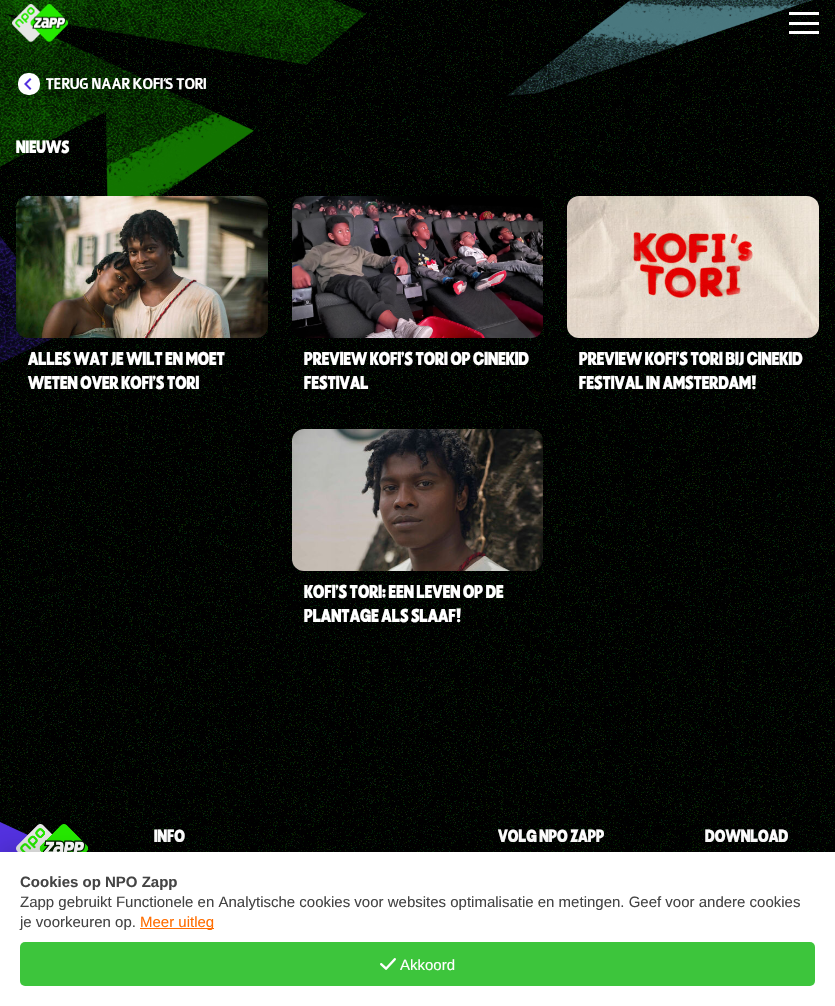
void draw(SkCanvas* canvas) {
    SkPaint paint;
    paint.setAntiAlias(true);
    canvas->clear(0xFFFFFFFF);
    canvas->drawImageRect(SkImages::DeferredFromEncodedData(SkData::MakeFromFileName("img1.png")), SkRect::MakeXYWH(0, 0, 835, 852), SkSamplingOptions());
    canvas->drawImageRect(SkImages::DeferredFromEncodedData(SkData::MakeFromFileName("img2.png")), SkRect::MakeXYWH(0, 0, 813, 363), SkSamplingOptions());
    canvas->drawImageRect(SkImages::DeferredFromEncodedData(SkData::MakeFromFileName("img3.png")), SkRect::MakeXYWH(12, 4, 56, 38), SkSamplingOptions());
    paint.setColor(0xFFFFFFFF);
    canvas->drawRect(SkRect::MakeXYWH(789, 12, 30, 3), paint);
    canvas->drawRect(SkRect::MakeXYWH(789, 31, 30, 3), paint);
    canvas->drawRect(SkRect::MakeXYWH(789, 22, 30, 3), paint);
    canvas->drawRoundRect(SkRect::MakeXYWH(18, 73, 22, 22), 10, 10, paint);
    canvas->drawImageRect(SkImages::DeferredFromEncodedData(SkData::MakeFromFileName("img4.png")), SkRect::MakeXYWH(24, 78, 8, 12), SkSamplingOptions());
    SkFont font1(fontMgr->matchFamilyStyle("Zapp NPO", SkFontStyle::Normal()), 15);
    font1.setSubpixel(true);
    canvas->drawString("TERUG NAAR KOFI'S TORI", 46, 89, font1, paint);
    SkFont font2(fontMgr->matchFamilyStyle("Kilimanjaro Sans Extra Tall", SkFontStyle::Normal()), 17);
    font2.setSubpixel(true);
    canvas->drawString("NIEUWS", 16, 153, font2, paint);
    canvas->drawImageRect(SkImages::DeferredFromEncodedData(SkData::MakeFromFileName("img5.png")), SkRect::MakeXYWH(16, 196, 252, 142), SkSamplingOptions());
    SkFont font3(fontMgr->matchFamilyStyle("Kilimanjaro Sans Extra Tall", SkFontStyle::Normal()), 18);
    font3.setSubpixel(true);
    canvas->drawString("ALLES WAT JE WILT EN MOET", 28, 365, font3, paint);
    canvas->drawString("WETEN OVER KOFI’S TORI", 28, 389, font3, paint);
    canvas->drawImageRect(SkImages::DeferredFromEncodedData(SkData::MakeFromFileName("img6.png")), SkRect::MakeXYWH(292, 196, 251, 142), SkSamplingOptions());
    canvas->drawString("PREVIEW KOFI’S TORI OP CINEKID", 304, 365, font3, paint);
    canvas->drawString("FESTIVAL", 304, 389, font3, paint);
    canvas->drawImageRect(SkImages::DeferredFromEncodedData(SkData::MakeFromFileName("img7.png")), SkRect::MakeXYWH(567, 196, 252, 142), SkSamplingOptions());
    canvas->drawString("PREVIEW KOFI’S TORI BIJ CINEKID", 579, 365, font3, paint);
    canvas->drawString("FESTIVAL IN AMSTERDAM!", 579, 389, font3, paint);
    canvas->drawImageRect(SkImages::DeferredFromEncodedData(SkData::MakeFromFileName("img8.png")), SkRect::MakeXYWH(292, 429, 251, 142), SkSamplingOptions());
    canvas->drawString("KOFI’S TORI: EEN LEVEN OP DE", 304, 598, font3, paint);
    canvas->drawString("PLANTAGE ALS SLAAF!", 304, 622, font3, paint);
    paint.setColor(0xFF5331DF);
    canvas->drawPath(SkPathBuilder().moveTo(194, 912).lineTo(0, 822).lineTo(0, 899).close().detach(), paint);
    canvas->drawImageRect(SkImages::DeferredFromEncodedData(SkData::MakeFromFileName("img9.png")), SkRect::MakeXYWH(16, 824, 72, 28), SkSamplingOptions());
    paint.setColor(0xFFFFFFFF);
    canvas->drawString("INFO", 154, 842, font2, paint);
    canvas->drawString("VOLG NPO ZAPP", 498, 842, font2, paint);
    canvas->drawString("DOWNLOAD", 705, 842, font2, paint);
    paint.setColor(0x1A000000);
    paint.setMaskFilter(SkMaskFilter::MakeBlur(kNormal_SkBlurStyle, 7.5f));
    canvas->drawRect(SkRect::MakeXYWH(0, 844, 835, 154), paint);
    paint.setMaskFilter(nullptr);
    paint.setColor(0xFFFFFFFF);
    canvas->drawRect(SkRect::MakeXYWH(0, 852, 835, 154), paint);
    SkFont font4(fontMgr->matchFamilyStyle("Liberation Sans", SkFontStyle::Bold()), 15);
    font4.setSubpixel(true);
    paint.setColor(0xFF444444);
    canvas->drawString("Cookies op NPO Zapp", 20, 887, font4, paint);
    SkFont font5(fontMgr->matchFamilyStyle("Liberation Sans", SkFontStyle::Normal()), 15);
    font5.setSubpixel(true);
    canvas->drawString("Zapp gebruikt Functionele en Analytische cookies voor websites optimalisatie en metingen. Geef voor andere cookies", 20, 907, font5, paint);
    canvas->drawString("je voorkeuren op.", 20, 927, font5, paint);
    paint.setColor(0xFFFF6D00);
    canvas->drawRect(SkRect::MakeXYWH(140, 928, 74, 1), paint);
    canvas->drawString("Meer uitleg", 140, 927, font5, paint);
    paint.setColor(0xFF3DC53C);
    canvas->drawRoundRect(SkRect::MakeXYWH(20, 942, 795, 44), 5, 5, paint);
    canvas->drawImageRect(SkImages::DeferredFromEncodedData(SkData::MakeFromFileName("img10.png")), SkRect::MakeXYWH(380, 958, 16, 12), SkSamplingOptions());
    paint.setColor(0xFFFFFFFF);
    canvas->drawString("Akkoord", 400, 970, font5, paint);
}
